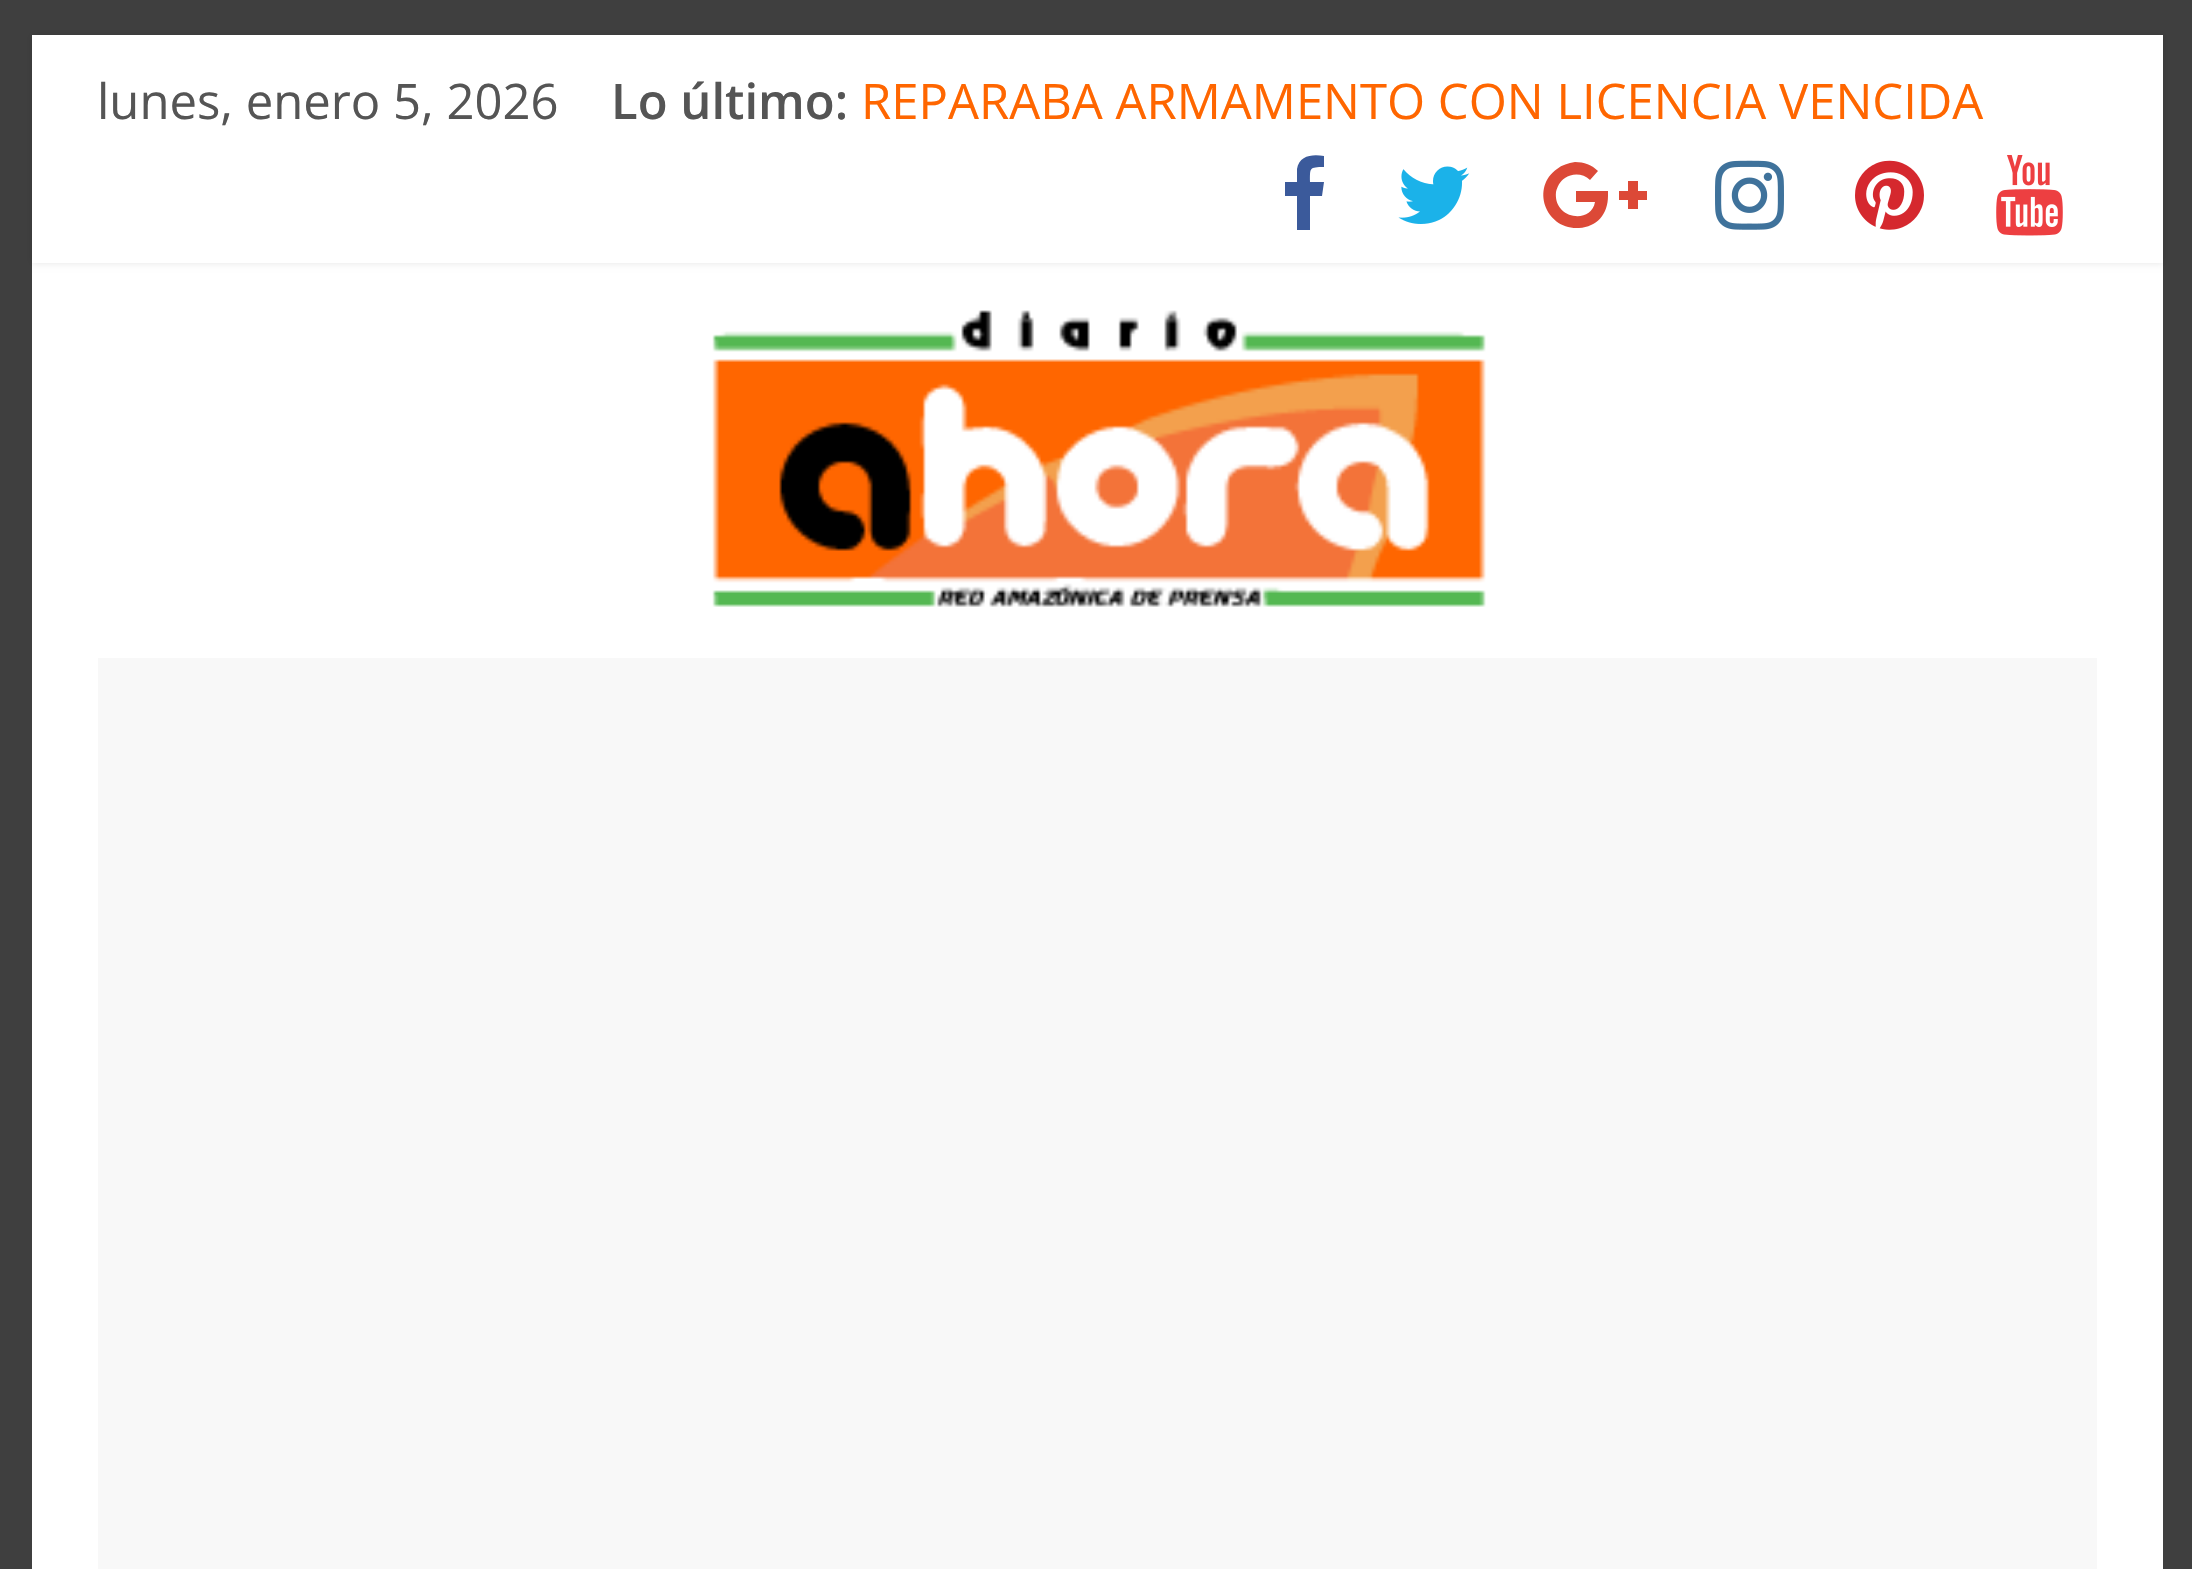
void draw(SkCanvas* canvas) {
    SkPaint paint;
    paint.setAntiAlias(true);
    canvas->clear(0xFF3F3F3F);
    paint.setColor(0xFFFFFFFF);
    canvas->drawRect(SkRect::MakeXYWH(32, 263, 2131, 1306), paint);
    paint.setColor(0x1A000000);
    paint.setMaskFilter(SkMaskFilter::MakeBlur(kNormal_SkBlurStyle, 3.5f));
    canvas->drawRect(SkRect::MakeXYWH(32, 35, 2131, 228), paint);
    paint.setMaskFilter(nullptr);
    paint.setColor(0xFFFFFFFF);
    canvas->drawRect(SkRect::MakeXYWH(32, 35, 2131, 228), paint);
    SkFont font1(fontMgr->matchFamilyStyle("Open Sans", SkFontStyle::Normal()), 49);
    font1.setSubpixel(true);
    paint.setColor(0xFF555555);
    canvas->drawString("lunes, enero 5, 2026", 97, 119, font1, paint);
    SkFont font2(fontMgr->matchFamilyStyle("Open Sans", SkFontStyle(600, SkFontStyle::kNormal_Width, SkFontStyle::kUpright_Slant)), 49);
    font2.setSubpixel(true);
    canvas->drawString("Lo último:", 611, 119, font2, paint);
    paint.setColor(0xFFFF6600);
    canvas->drawString("REPARABA ARMAMENTO CON LICENCIA VENCIDA", 861, 119, font1, paint);
    paint.setColor(0xFF3B5A9B);
    canvas->drawPath(SkPathBuilder().moveTo(1324, 156).lineTo(1324, 167).cubicTo(1309, 167, 1310, 168, 1310, 182).lineTo(1324, 182).lineTo(1322, 196).lineTo(1310, 196).lineTo(1310, 230).lineTo(1297, 230).lineTo(1297, 196).lineTo(1285, 196).lineTo(1285, 182).lineTo(1297, 182).lineTo(1297, 169).cubicTo(1299, 155, 1313, 154, 1324, 156).close().detach(), paint);
    canvas->drawImageRect(SkImages::DeferredFromEncodedData(SkData::MakeFromFileName("img1.png")), SkRect::MakeXYWH(1398, 166, 72, 58), SkSamplingOptions());
    paint.setColor(0xFFDC4937);
    canvas->drawPath(SkPathBuilder().moveTo(1608, 196).cubicTo(1608, 214, 1597, 227, 1579, 228).cubicTo(1546, 230, 1530, 188, 1557, 169).cubicTo(1562, 165, 1568, 163, 1575, 162).cubicTo(1584, 162, 1592, 165, 1598, 171).lineTo(1590, 180).cubicTo(1583, 173, 1572, 173, 1565, 178).cubicTo(1560, 181, 1557, 187, 1556, 192).cubicTo(1553, 219, 1591, 225, 1595, 202).lineTo(1576, 202).lineTo(1576, 191).lineTo(1608, 191).close().moveTo(1647, 191).lineTo(1647, 200).lineTo(1638, 200).lineTo(1638, 209).lineTo(1628, 209).lineTo(1628, 200).lineTo(1619, 200).lineTo(1619, 191).lineTo(1628, 191).lineTo(1628, 181).lineTo(1638, 181).lineTo(1638, 191).close().detach(), paint);
    canvas->drawImageRect(SkImages::DeferredFromEncodedData(SkData::MakeFromFileName("img2.png")), SkRect::MakeXYWH(1715, 160, 69, 70), SkSamplingOptions());
    canvas->drawImageRect(SkImages::DeferredFromEncodedData(SkData::MakeFromFileName("img3.png")), SkRect::MakeXYWH(1855, 160, 69, 70), SkSamplingOptions());
    canvas->drawImageRect(SkImages::DeferredFromEncodedData(SkData::MakeFromFileName("img4.png")), SkRect::MakeXYWH(1996, 155, 67, 81), SkSamplingOptions());
    canvas->drawImageRect(SkImages::DeferredFromEncodedData(SkData::MakeFromFileName("img5.png")), SkRect::MakeXYWH(712, 310, 774, 297), SkSamplingOptions());
    paint.setColor(0xFFF8F8F8);
    canvas->drawRect(SkRect::MakeXYWH(98, 658, 1999, 911), paint);
}
